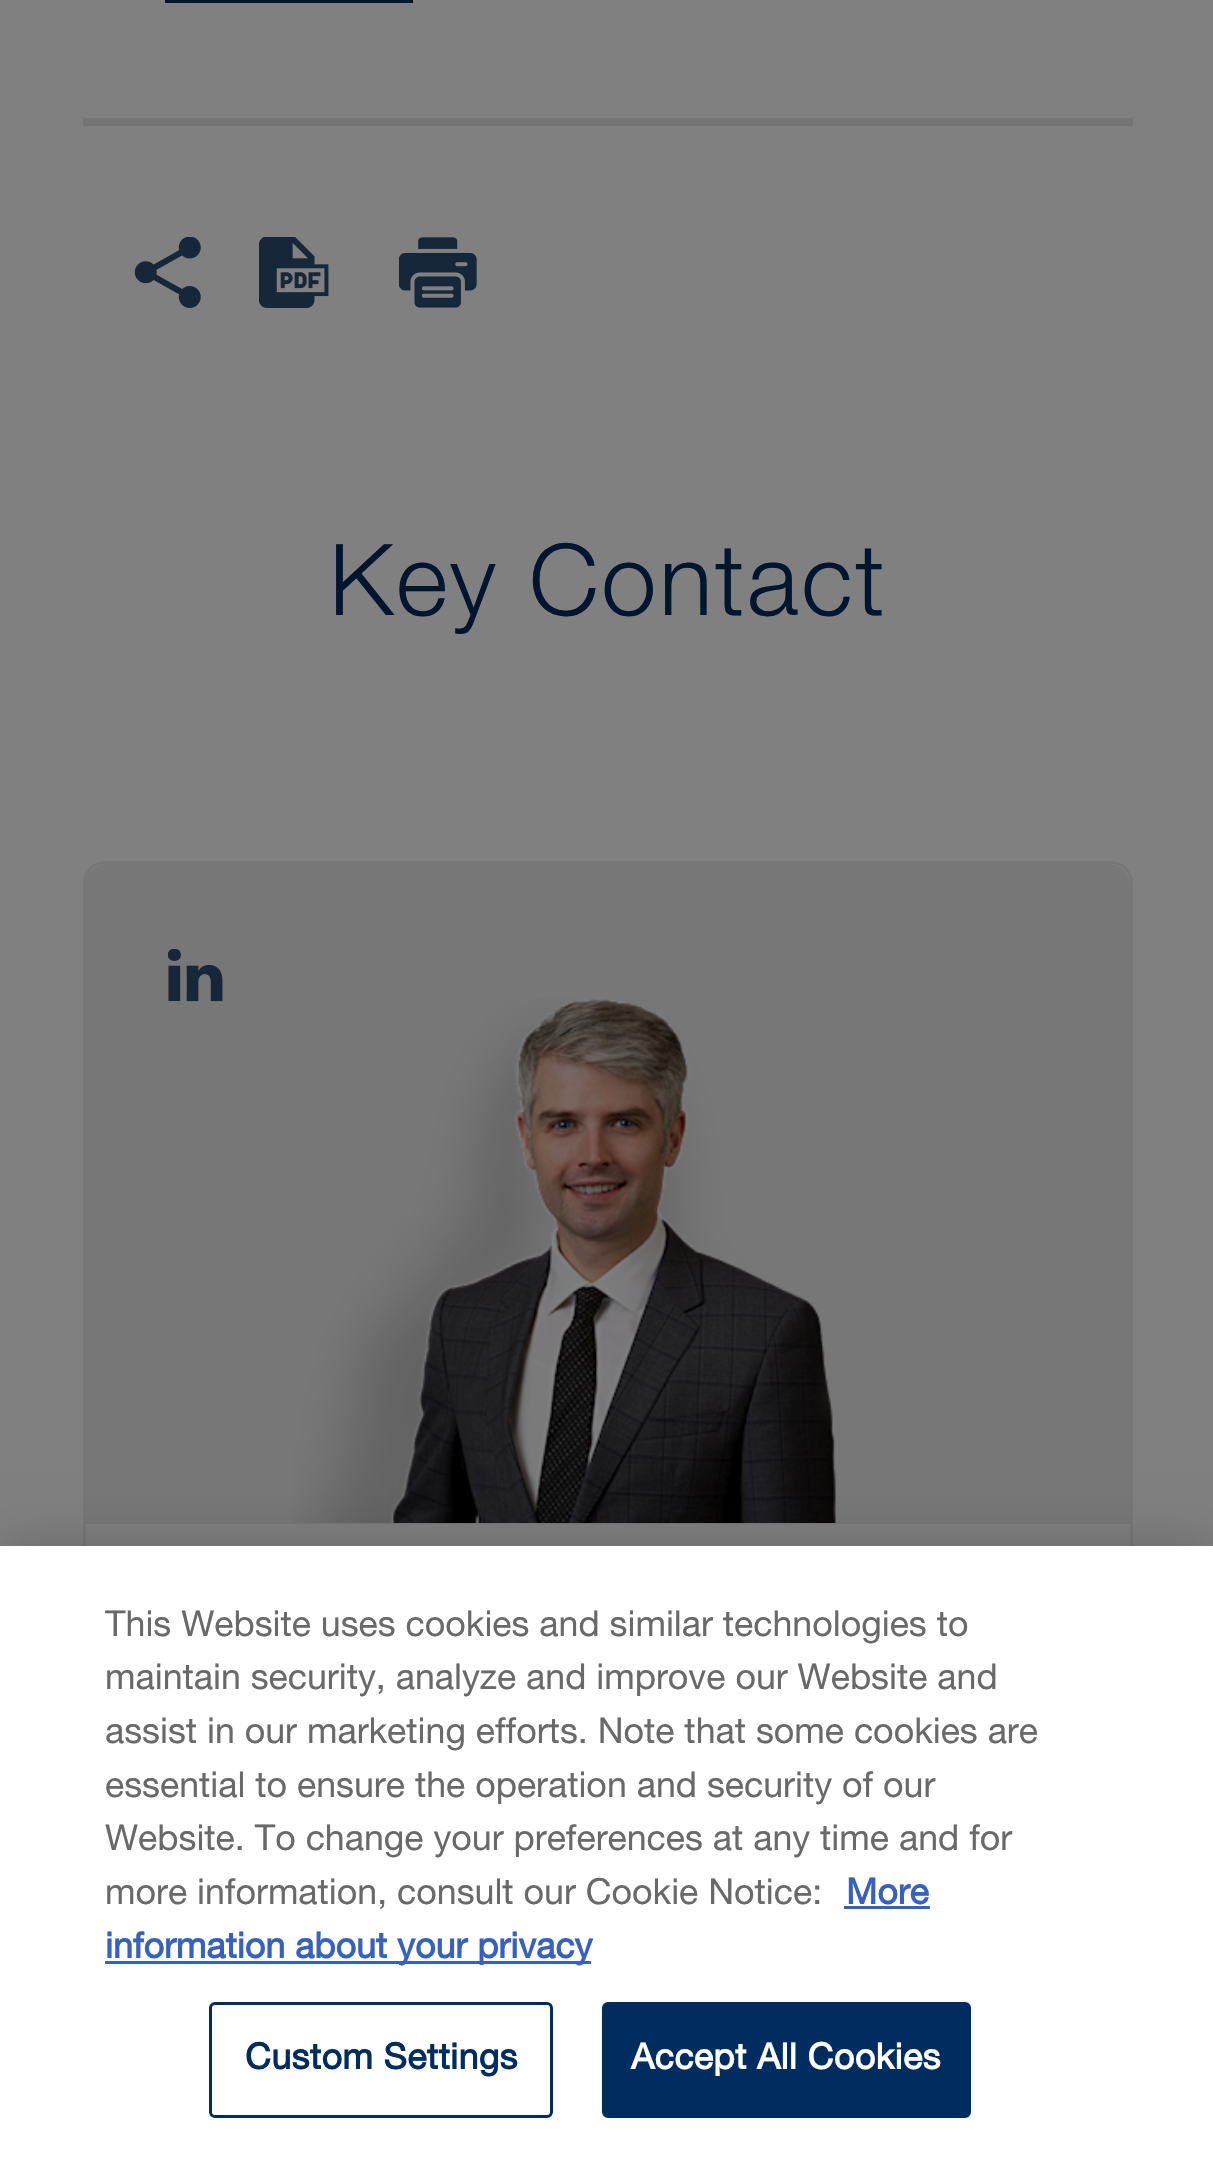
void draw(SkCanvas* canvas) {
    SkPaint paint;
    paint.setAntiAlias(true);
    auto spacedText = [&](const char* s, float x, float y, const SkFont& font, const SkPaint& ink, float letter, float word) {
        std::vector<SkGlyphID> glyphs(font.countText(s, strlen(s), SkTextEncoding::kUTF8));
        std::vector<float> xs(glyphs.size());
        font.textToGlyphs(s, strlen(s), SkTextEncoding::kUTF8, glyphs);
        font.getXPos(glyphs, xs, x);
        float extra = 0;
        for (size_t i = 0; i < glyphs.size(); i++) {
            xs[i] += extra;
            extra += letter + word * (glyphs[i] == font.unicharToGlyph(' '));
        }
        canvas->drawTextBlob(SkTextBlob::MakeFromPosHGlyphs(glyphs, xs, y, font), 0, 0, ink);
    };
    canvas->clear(0xFF808080);
    paint.setColor(0xFF747474);
    canvas->drawRect(SkRect::MakeXYWH(83, 118, 1050, 8), paint);
    paint.setColor(0xFF001630);
    canvas->drawRect(SkRect::MakeXYWH(165, 0, 248, 3), paint);
    canvas->drawImageRect(SkImages::DeferredFromEncodedData(SkData::MakeFromFileName("img1.png")), SkRect::MakeXYWH(134, 237, 67, 71), SkSamplingOptions());
    canvas->drawImageRect(SkImages::DeferredFromEncodedData(SkData::MakeFromFileName("img2.png")), SkRect::MakeXYWH(259, 237, 70, 71), SkSamplingOptions());
    canvas->drawImageRect(SkImages::DeferredFromEncodedData(SkData::MakeFromFileName("img3.png")), SkRect::MakeXYWH(399, 237, 78, 71), SkSamplingOptions());
    SkFont font1(fontMgr->matchFamilyStyle("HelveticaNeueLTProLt", SkFontStyle::Normal()), 99);
    font1.setSubpixel(true);
    spacedText("Key Contact", 329, 615, font1, paint, 2.75f, 0);
    paint.setStyle(SkPaint::kStroke_Style);
    paint.setStrokeWidth(3);
    paint.setColor(0xFF777777);
    canvas->drawRoundRect(SkRect::MakeXYWH(84.5f, 862.5f, 1047, 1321), 20.5f, 20.5f, paint);
    paint.setStyle(SkPaint::kFill_Style);
    canvas->drawPath(SkPathBuilder().moveTo(107, 864).lineTo(1108, 864).cubicTo(1120, 864, 1130, 874, 1130, 886).lineTo(1130, 1524).lineTo(85, 1524).lineTo(85, 886).cubicTo(85, 874, 95, 864, 107, 864).close().detach(), paint);
    canvas->drawImageRect(SkImages::DeferredFromEncodedData(SkData::MakeFromFileName("img4.png")), SkRect::MakeXYWH(292, 998, 544, 525), SkSamplingOptions());
    canvas->drawImageRect(SkImages::DeferredFromEncodedData(SkData::MakeFromFileName("img5.png")), SkRect::MakeXYWH(168, 949, 55, 53), SkSamplingOptions());
    paint.setColor(0x33000000);
    paint.setMaskFilter(SkMaskFilter::MakeBlur(kNormal_SkBlurStyle, 25));
    canvas->drawRect(SkRect::MakeXYWH(0, 1546, 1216, 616), paint);
    paint.setMaskFilter(nullptr);
    paint.setColor(0xFFFFFFFF);
    canvas->drawRect(SkRect::MakeXYWH(0, 1546, 1213, 614), paint);
    canvas->save();
    canvas->clipRect(SkRect::MakeXYWH(105, 1601, 951, 374));
    SkFont font2(fontMgr->matchFamilyStyle("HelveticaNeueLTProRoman", SkFontStyle::Normal()), 35.75f);
    font2.setSubpixel(true);
    paint.setColor(0xFF696969);
    canvas->drawString("This Website uses cookies and similar technologies to", 105, 1636, font2, paint);
    canvas->restore();
    canvas->drawString("maintain security, analyze and improve our Website and", 105, 1689, font2, paint);
    canvas->drawString("assist in our marketing efforts. Note that some cookies are", 105, 1743, font2, paint);
    canvas->drawString("essential to ensure the operation and security of our", 105, 1797, font2, paint);
    canvas->drawString("Website. To change your preferences at any time and for", 105, 1850, font2, paint);
    canvas->drawString("more information, consult our Cookie Notice:", 105, 1904, font2, paint);
    SkFont font3(fontMgr->matchFamilyStyle("HelveticaNeueLTProRoman", SkFontStyle::Bold()), 35.75f);
    font3.setSubpixel(true);
    paint.setColor(0xFF3860BE);
    canvas->drawString("More", 846, 1904, font3, paint);
    canvas->drawRect(SkRect::MakeXYWH(844, 1906, 86, 3), paint);
    canvas->drawRect(SkRect::MakeXYWH(105, 1961, 486, 3), paint);
    canvas->drawString("information about your privacy", 105, 1958, font3, paint);
    paint.setStyle(SkPaint::kStroke_Style);
    paint.setColor(0xFF002C5F);
    canvas->drawRoundRect(SkRect::MakeXYWH(210.5f, 2003.5f, 341, 113), 4.5f, 4.5f, paint);
    paint.setStyle(SkPaint::kFill_Style);
    spacedText("Custom Settings", 245, 2069, font3, paint, 0.4f, 0);
    canvas->drawRoundRect(SkRect::MakeXYWH(603.5f, 2003.5f, 366, 113), 4.5f, 4.5f, paint);
    paint.setStyle(SkPaint::kStroke_Style);
    canvas->drawRoundRect(SkRect::MakeXYWH(603.5f, 2003.5f, 366, 113), 4.5f, 4.5f, paint);
    paint.setStyle(SkPaint::kFill_Style);
    paint.setColor(0xFFFFFFFF);
    spacedText("Accept All Cookies", 631, 2069, font3, paint, 0.4f, 0);
}
